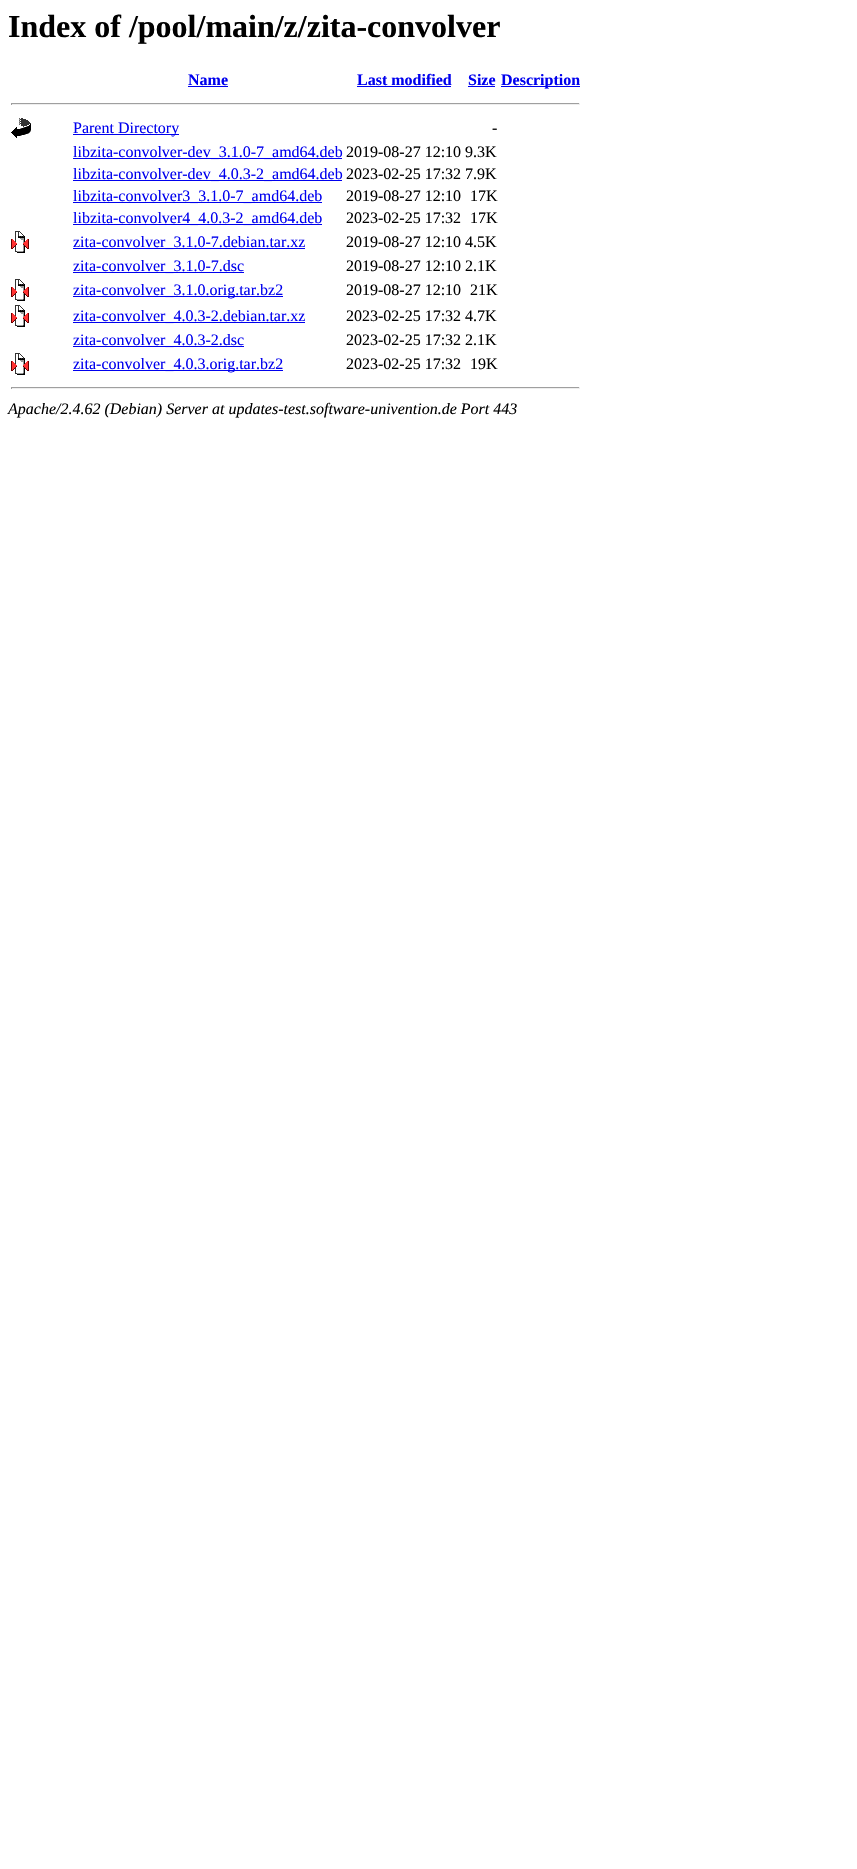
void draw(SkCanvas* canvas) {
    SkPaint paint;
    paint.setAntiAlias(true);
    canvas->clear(0xFFFFFFFF);
    SkFont font1(fontMgr->matchFamilyStyle("Liberation Serif", SkFontStyle::Bold()), 32);
    font1.setSubpixel(true);
    paint.setColor(0xFF000000);
    canvas->drawString("Index of /pool/main/z/zita-convolver", 8, 37, font1, paint);
    SkFont font2(fontMgr->matchFamilyStyle("Liberation Serif", SkFontStyle::Bold()), 16);
    font2.setSubpixel(true);
    paint.setColor(0xFF0000EE);
    canvas->drawString("Name", 188, 85, font2, paint);
    canvas->drawRect(SkRect::MakeXYWH(188, 86, 40, 1), paint);
    canvas->drawString("Last modified", 357, 85, font2, paint);
    canvas->drawRect(SkRect::MakeXYWH(357, 86, 94, 1), paint);
    canvas->drawString("Size", 468, 85, font2, paint);
    canvas->drawRect(SkRect::MakeXYWH(468, 86, 27, 1), paint);
    canvas->drawRect(SkRect::MakeXYWH(501, 86, 79, 1), paint);
    canvas->drawString("Description", 501, 85, font2, paint);
    paint.setColor(0xFF9F9F9F);
    canvas->drawRect(SkRect::MakeXYWH(11, 103, 569, 1), paint);
    paint.setColor(0xFFEEEEEE);
    canvas->drawRect(SkRect::MakeXYWH(579, 103, 1, 2), paint);
    canvas->drawRect(SkRect::MakeXYWH(11, 104, 569, 1), paint);
    paint.setColor(0xFF9F9F9F);
    canvas->drawRect(SkRect::MakeXYWH(11, 103, 1, 2), paint);
    canvas->drawImageRect(SkImages::DeferredFromEncodedData(SkData::MakeFromFileName("img1.png")), SkRect::MakeXYWH(11, 118, 20, 20), SkSamplingOptions());
    paint.setColor(0xFF0000EE);
    canvas->drawRect(SkRect::MakeXYWH(73, 134, 106, 1), paint);
    SkFont font3(fontMgr->matchFamilyStyle("Liberation Serif", SkFontStyle::Normal()), 16);
    font3.setSubpixel(true);
    canvas->drawString("Parent Directory", 73, 133, font3, paint);
    paint.setColor(0xFF000000);
    canvas->drawString("-", 492, 133, font3, paint);
    paint.setColor(0xFF0000EE);
    canvas->drawRect(SkRect::MakeXYWH(73, 158, 269, 1), paint);
    canvas->drawString("libzita-convolver-dev_3.1.0-7_amd64.deb", 73, 157, font3, paint);
    paint.setColor(0xFF000000);
    canvas->drawString("2019-08-27 12:10 9.3K", 346, 157, font3, paint);
    paint.setColor(0xFF0000EE);
    canvas->drawRect(SkRect::MakeXYWH(73, 180, 269, 1), paint);
    canvas->drawString("libzita-convolver-dev_4.0.3-2_amd64.deb", 73, 179, font3, paint);
    paint.setColor(0xFF000000);
    canvas->drawString("2023-02-25 17:32 7.9K", 346, 179, font3, paint);
    paint.setColor(0xFF0000EE);
    canvas->drawRect(SkRect::MakeXYWH(73, 202, 249, 1), paint);
    canvas->drawString("libzita-convolver3_3.1.0-7_amd64.deb", 73, 201, font3, paint);
    paint.setColor(0xFF000000);
    canvas->drawString("2019-08-27 12:10", 346, 201, font3, paint);
    canvas->drawString("17K", 470, 201, font3, paint);
    paint.setColor(0xFF0000EE);
    canvas->drawRect(SkRect::MakeXYWH(73, 224, 249, 1), paint);
    canvas->drawString("libzita-convolver4_4.0.3-2_amd64.deb", 73, 223, font3, paint);
    paint.setColor(0xFF000000);
    canvas->drawString("2023-02-25 17:32", 346, 223, font3, paint);
    canvas->drawString("17K", 470, 223, font3, paint);
    canvas->drawImageRect(SkImages::DeferredFromEncodedData(SkData::MakeFromFileName("img2.png")), SkRect::MakeXYWH(11, 231, 18, 22), SkSamplingOptions());
    paint.setColor(0xFF0000EE);
    canvas->drawRect(SkRect::MakeXYWH(73, 248, 232, 1), paint);
    canvas->drawString("zita-convolver_3.1.0-7.debian.tar.xz", 73, 247, font3, paint);
    paint.setColor(0xFF000000);
    canvas->drawString("2019-08-27 12:10 4.5K", 346, 247, font3, paint);
    paint.setColor(0xFF0000EE);
    canvas->drawRect(SkRect::MakeXYWH(73, 272, 171, 1), paint);
    canvas->drawString("zita-convolver_3.1.0-7.dsc", 73, 271, font3, paint);
    paint.setColor(0xFF000000);
    canvas->drawString("2019-08-27 12:10 2.1K", 346, 271, font3, paint);
    canvas->drawImageRect(SkImages::DeferredFromEncodedData(SkData::MakeFromFileName("img2.png")), SkRect::MakeXYWH(11, 279, 18, 22), SkSamplingOptions());
    paint.setColor(0xFF0000EE);
    canvas->drawRect(SkRect::MakeXYWH(73, 296, 210, 1), paint);
    canvas->drawString("zita-convolver_3.1.0.orig.tar.bz2", 73, 295, font3, paint);
    paint.setColor(0xFF000000);
    canvas->drawString("2019-08-27 12:10", 346, 295, font3, paint);
    canvas->drawString("21K", 470, 295, font3, paint);
    canvas->drawImageRect(SkImages::DeferredFromEncodedData(SkData::MakeFromFileName("img2.png")), SkRect::MakeXYWH(11, 305, 18, 22), SkSamplingOptions());
    paint.setColor(0xFF0000EE);
    canvas->drawRect(SkRect::MakeXYWH(73, 322, 232, 1), paint);
    canvas->drawString("zita-convolver_4.0.3-2.debian.tar.xz", 73, 321, font3, paint);
    paint.setColor(0xFF000000);
    canvas->drawString("2023-02-25 17:32 4.7K", 346, 321, font3, paint);
    paint.setColor(0xFF0000EE);
    canvas->drawRect(SkRect::MakeXYWH(73, 346, 171, 1), paint);
    canvas->drawString("zita-convolver_4.0.3-2.dsc", 73, 345, font3, paint);
    paint.setColor(0xFF000000);
    canvas->drawString("2023-02-25 17:32 2.1K", 346, 345, font3, paint);
    canvas->drawImageRect(SkImages::DeferredFromEncodedData(SkData::MakeFromFileName("img2.png")), SkRect::MakeXYWH(11, 353, 18, 22), SkSamplingOptions());
    paint.setColor(0xFF0000EE);
    canvas->drawRect(SkRect::MakeXYWH(73, 370, 210, 1), paint);
    canvas->drawString("zita-convolver_4.0.3.orig.tar.bz2", 73, 369, font3, paint);
    paint.setColor(0xFF000000);
    canvas->drawString("2023-02-25 17:32", 346, 369, font3, paint);
    canvas->drawString("19K", 470, 369, font3, paint);
    paint.setColor(0xFF9F9F9F);
    canvas->drawRect(SkRect::MakeXYWH(11, 387, 569, 1), paint);
    paint.setColor(0xFFEEEEEE);
    canvas->drawRect(SkRect::MakeXYWH(579, 387, 1, 2), paint);
    canvas->drawRect(SkRect::MakeXYWH(11, 388, 569, 1), paint);
    paint.setColor(0xFF9F9F9F);
    canvas->drawRect(SkRect::MakeXYWH(11, 387, 1, 2), paint);
    SkFont font4(fontMgr->matchFamilyStyle("Liberation Serif", SkFontStyle::Italic()), 16);
    font4.setSubpixel(true);
    paint.setColor(0xFF000000);
    canvas->drawString("Apache/2.4.62 (Debian) Server at updates-test.software-univention.de Port 443", 8, 414, font4, paint);
}
